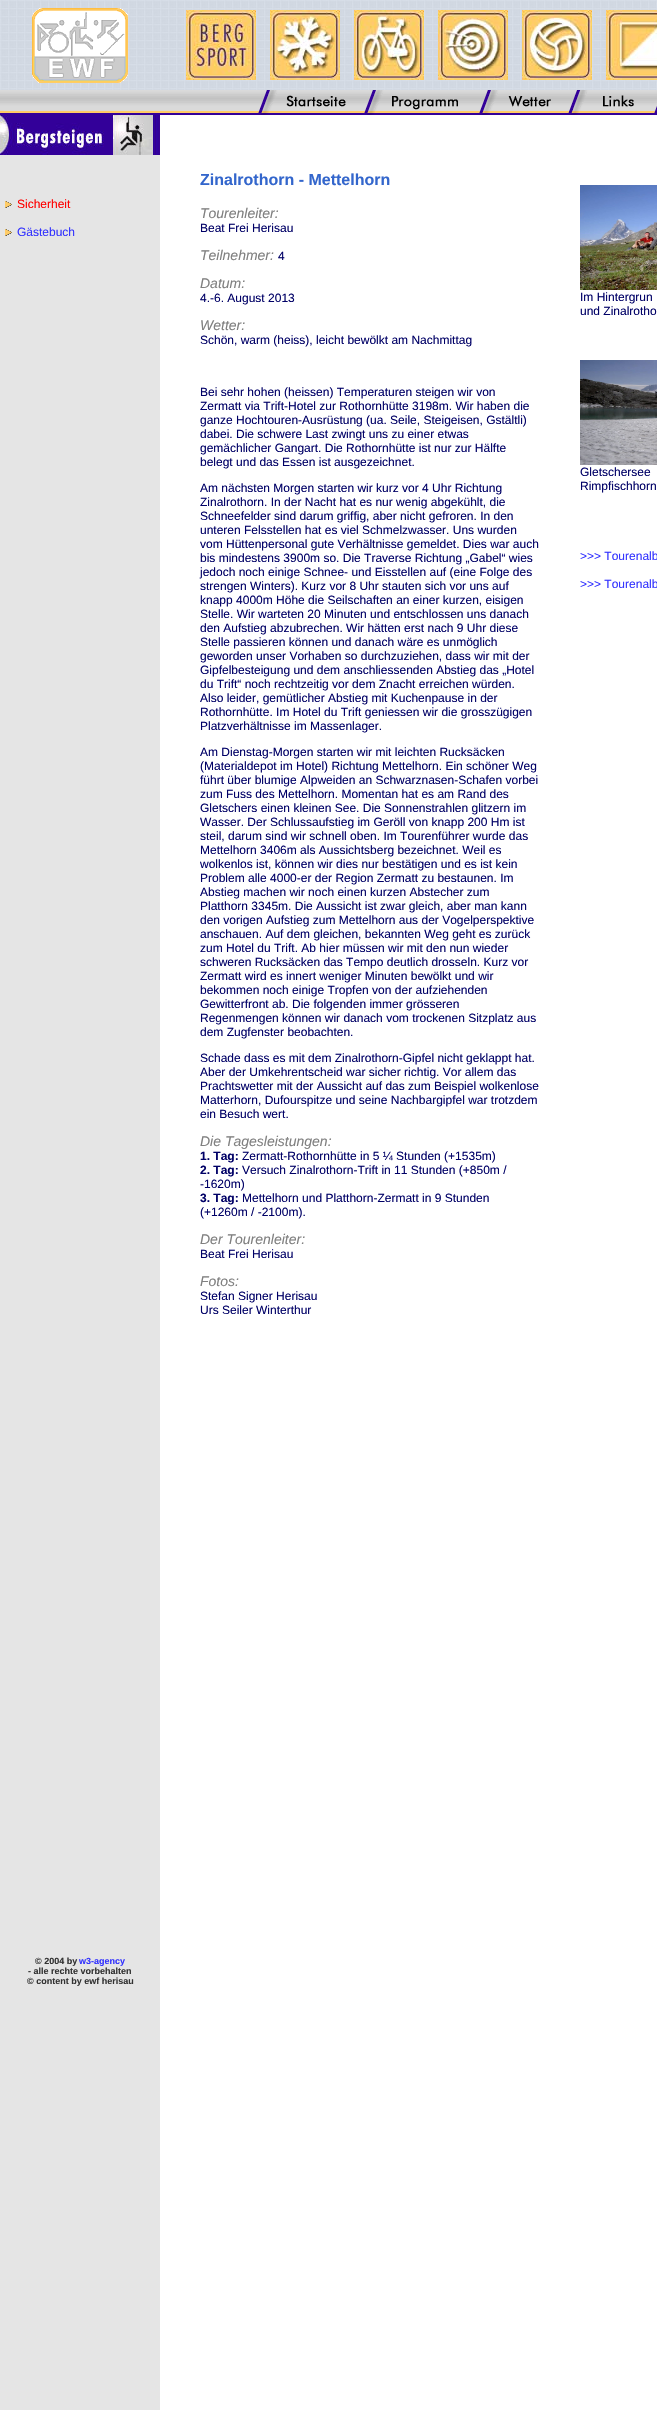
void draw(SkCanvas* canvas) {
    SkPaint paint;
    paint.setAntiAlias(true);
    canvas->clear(0xFFFFFFFF);
    canvas->drawImageRect(SkImages::DeferredFromEncodedData(SkData::MakeFromFileName("img1.png")), SkRect::MakeXYWH(0, 0, 657, 90), SkSamplingOptions());
    canvas->drawImageRect(SkImages::DeferredFromEncodedData(SkData::MakeFromFileName("img2.png")), SkRect::MakeXYWH(32, 8, 96, 75), SkSamplingOptions());
    canvas->drawImageRect(SkImages::DeferredFromEncodedData(SkData::MakeFromFileName("img3.png")), SkRect::MakeXYWH(186, 10, 70, 70), SkSamplingOptions());
    canvas->drawImageRect(SkImages::DeferredFromEncodedData(SkData::MakeFromFileName("img4.png")), SkRect::MakeXYWH(270, 10, 70, 70), SkSamplingOptions());
    canvas->drawImageRect(SkImages::DeferredFromEncodedData(SkData::MakeFromFileName("img5.png")), SkRect::MakeXYWH(354, 10, 70, 70), SkSamplingOptions());
    canvas->drawImageRect(SkImages::DeferredFromEncodedData(SkData::MakeFromFileName("img6.png")), SkRect::MakeXYWH(438, 10, 70, 70), SkSamplingOptions());
    canvas->drawImageRect(SkImages::DeferredFromEncodedData(SkData::MakeFromFileName("img7.png")), SkRect::MakeXYWH(522, 10, 70, 70), SkSamplingOptions());
    canvas->drawImageRect(SkImages::DeferredFromEncodedData(SkData::MakeFromFileName("img8.png")), SkRect::MakeXYWH(606, 10, 51, 70), SkSamplingOptions());
    canvas->drawImageRect(SkImages::DeferredFromEncodedData(SkData::MakeFromFileName("img9.png")), SkRect::MakeXYWH(0, 90, 657, 25), SkSamplingOptions());
    canvas->drawImageRect(SkImages::DeferredFromEncodedData(SkData::MakeFromFileName("img10.png")), SkRect::MakeXYWH(0, 115, 160, 40), SkSamplingOptions());
    paint.setColor(0xFFE5E5E5);
    canvas->drawRect(SkRect::MakeXYWH(0, 155, 160, 2255), paint);
    canvas->drawImageRect(SkImages::DeferredFromEncodedData(SkData::MakeFromFileName("img11.png")), SkRect::MakeXYWH(5, 201, 7, 7), SkSamplingOptions());
    SkFont font1(fontMgr->matchFamilyStyle("Liberation Sans", SkFontStyle::Normal()), 12);
    font1.setSubpixel(true);
    paint.setColor(0xFFFF0000);
    canvas->drawString("Sicherheit", 17, 208, font1, paint);
    canvas->drawImageRect(SkImages::DeferredFromEncodedData(SkData::MakeFromFileName("img11.png")), SkRect::MakeXYWH(5, 229, 7, 7), SkSamplingOptions());
    paint.setColor(0xFF3333FF);
    canvas->drawString("Gästebuch", 17, 236, font1, paint);
    SkFont font2(fontMgr->matchFamilyStyle("Liberation Sans", SkFontStyle::Bold()), 16);
    font2.setSubpixel(true);
    paint.setColor(0xFF3366CC);
    canvas->drawString("Zinalrothorn - Mettelhorn", 200, 185, font2, paint);
    SkFont font3(fontMgr->matchFamilyStyle("Liberation Sans", SkFontStyle::Italic()), 14);
    font3.setSubpixel(true);
    paint.setColor(0xFF808080);
    canvas->drawString("Tourenleiter:", 200, 218, font3, paint);
    paint.setColor(0xFF000066);
    canvas->drawString("Beat Frei Herisau", 200, 232, font1, paint);
    paint.setColor(0xFF808080);
    canvas->drawString("Teilnehmer:", 200, 260, font3, paint);
    paint.setColor(0xFF000066);
    canvas->drawString("4", 278, 260, font1, paint);
    paint.setColor(0xFF808080);
    canvas->drawString("Datum:", 200, 288, font3, paint);
    paint.setColor(0xFF000066);
    canvas->drawString("4.-6. August 2013", 200, 302, font1, paint);
    paint.setColor(0xFF808080);
    canvas->drawString("Wetter:", 200, 330, font3, paint);
    paint.setColor(0xFF000066);
    canvas->drawString("Schön, warm (heiss), leicht bewölkt am Nachmittag", 200, 344, font1, paint);
    canvas->drawString("Bei sehr hohen (heissen) Temperaturen steigen wir von", 200, 396, font1, paint);
    canvas->drawString("Zermatt via Trift-Hotel zur Rothornhütte 3198m. Wir haben die", 200, 410, font1, paint);
    canvas->drawString("ganze Hochtouren-Ausrüstung (ua. Seile, Steigeisen, Gstältli)", 200, 424, font1, paint);
    canvas->drawString("dabei. Die schwere Last zwingt uns zu einer etwas", 200, 438, font1, paint);
    canvas->drawString("gemächlicher Gangart. Die Rothornhütte ist nur zur Hälfte", 200, 452, font1, paint);
    canvas->drawString("belegt und das Essen ist ausgezeichnet.", 200, 466, font1, paint);
    canvas->drawString("Am nächsten Morgen starten wir kurz vor 4 Uhr Richtung", 200, 492, font1, paint);
    canvas->drawString("Zinalrothorn. In der Nacht hat es nur wenig abgekühlt, die", 200, 506, font1, paint);
    canvas->drawString("Schneefelder sind darum griffig, aber nicht gefroren. In den", 200, 520, font1, paint);
    canvas->drawString("unteren Felsstellen hat es viel Schmelzwasser. Uns wurden", 200, 534, font1, paint);
    canvas->drawString("vom Hüttenpersonal gute Verhältnisse gemeldet. Dies war auch", 200, 548, font1, paint);
    canvas->drawString("bis mindestens 3900m so. Die Traverse Richtung „Gabel“ wies", 200, 562, font1, paint);
    canvas->drawString("jedoch noch einige Schnee- und Eisstellen auf (eine Folge des", 200, 576, font1, paint);
    canvas->drawString("strengen Winters). Kurz vor 8 Uhr stauten sich vor uns auf", 200, 590, font1, paint);
    canvas->drawString("knapp 4000m Höhe die Seilschaften an einer kurzen, eisigen", 200, 604, font1, paint);
    canvas->drawString("Stelle. Wir warteten 20 Minuten und entschlossen uns danach", 200, 618, font1, paint);
    canvas->drawString("den Aufstieg abzubrechen. Wir hätten erst nach 9 Uhr diese", 200, 632, font1, paint);
    canvas->drawString("Stelle passieren können und danach wäre es unmöglich", 200, 646, font1, paint);
    canvas->drawString("geworden unser Vorhaben so durchzuziehen, dass wir mit der", 200, 660, font1, paint);
    canvas->drawString("Gipfelbesteigung und dem anschliessenden Abstieg das „Hotel", 200, 674, font1, paint);
    canvas->drawString("du Trift“ noch rechtzeitig vor dem Znacht erreichen würden.", 200, 688, font1, paint);
    canvas->drawString("Also leider, gemütlicher Abstieg mit Kuchenpause in der", 200, 702, font1, paint);
    canvas->drawString("Rothornhütte. Im Hotel du Trift geniessen wir die grosszügigen", 200, 716, font1, paint);
    canvas->drawString("Platzverhältnisse im Massenlager.", 200, 730, font1, paint);
    canvas->drawString("Am Dienstag-Morgen starten wir mit leichten Rucksäcken", 200, 756, font1, paint);
    canvas->drawString("(Materialdepot im Hotel) Richtung Mettelhorn. Ein schöner Weg", 200, 770, font1, paint);
    canvas->drawString("führt über blumige Alpweiden an Schwarznasen-Schafen vorbei", 200, 784, font1, paint);
    canvas->drawString("zum Fuss des Mettelhorn. Momentan hat es am Rand des", 200, 798, font1, paint);
    canvas->drawString("Gletschers einen kleinen See. Die Sonnenstrahlen glitzern im", 200, 812, font1, paint);
    canvas->drawString("Wasser. Der Schlussaufstieg im Geröll von knapp 200 Hm ist", 200, 826, font1, paint);
    canvas->drawString("steil, darum sind wir schnell oben. Im Tourenführer wurde das", 200, 840, font1, paint);
    canvas->drawString("Mettelhorn 3406m als Aussichtsberg bezeichnet. Weil es", 200, 854, font1, paint);
    canvas->drawString("wolkenlos ist, können wir dies nur bestätigen und es ist kein", 200, 868, font1, paint);
    canvas->drawString("Problem alle 4000-er der Region Zermatt zu bestaunen. Im", 200, 882, font1, paint);
    canvas->drawString("Abstieg machen wir noch einen kurzen Abstecher zum", 200, 896, font1, paint);
    canvas->drawString("Platthorn 3345m. Die Aussicht ist zwar gleich, aber man kann", 200, 910, font1, paint);
    canvas->drawString("den vorigen Aufstieg zum Mettelhorn aus der Vogelperspektive", 200, 924, font1, paint);
    canvas->drawString("anschauen. Auf dem gleichen, bekannten Weg geht es zurück", 200, 938, font1, paint);
    canvas->drawString("zum Hotel du Trift. Ab hier müssen wir mit den nun wieder", 200, 952, font1, paint);
    canvas->drawString("schweren Rucksäcken das Tempo deutlich drosseln. Kurz vor", 200, 966, font1, paint);
    canvas->drawString("Zermatt wird es innert weniger Minuten bewölkt und wir", 200, 980, font1, paint);
    canvas->drawString("bekommen noch einige Tropfen von der aufziehenden", 200, 994, font1, paint);
    canvas->drawString("Gewitterfront ab. Die folgenden immer grösseren", 200, 1008, font1, paint);
    canvas->drawString("Regenmengen können wir danach vom trockenen Sitzplatz aus", 200, 1022, font1, paint);
    canvas->drawString("dem Zugfenster beobachten.", 200, 1036, font1, paint);
    canvas->drawString("Schade dass es mit dem Zinalrothorn-Gipfel nicht geklappt hat.", 200, 1062, font1, paint);
    canvas->drawString("Aber der Umkehrentscheid war sicher richtig. Vor allem das", 200, 1076, font1, paint);
    canvas->drawString("Prachtswetter mit der Aussicht auf das zum Beispiel wolkenlose", 200, 1090, font1, paint);
    canvas->drawString("Matterhorn, Dufourspitze und seine Nachbargipfel war trotzdem", 200, 1104, font1, paint);
    canvas->drawString("ein Besuch wert.", 200, 1118, font1, paint);
    paint.setColor(0xFF808080);
    canvas->drawString("Die Tagesleistungen:", 200, 1146, font3, paint);
    SkFont font4(fontMgr->matchFamilyStyle("Liberation Sans", SkFontStyle::Bold()), 12);
    font4.setSubpixel(true);
    paint.setColor(0xFF000066);
    canvas->drawString("1. Tag:", 200, 1160, font4, paint);
    canvas->drawString("Zermatt-Rothornhütte in 5 ¼ Stunden (+1535m)", 242, 1160, font1, paint);
    canvas->drawString("2. Tag:", 200, 1174, font4, paint);
    canvas->drawString("Versuch Zinalrothorn-Trift in 11 Stunden (+850m /", 242, 1174, font1, paint);
    canvas->drawString("-1620m)", 200, 1188, font1, paint);
    canvas->drawString("3. Tag:", 200, 1202, font4, paint);
    canvas->drawString("Mettelhorn und Platthorn-Zermatt in 9 Stunden", 242, 1202, font1, paint);
    canvas->drawString("(+1260m / -2100m).", 200, 1216, font1, paint);
    paint.setColor(0xFF808080);
    canvas->drawString("Der Tourenleiter:", 200, 1244, font3, paint);
    paint.setColor(0xFF000066);
    canvas->drawString("Beat Frei Herisau", 200, 1258, font1, paint);
    paint.setColor(0xFF808080);
    canvas->drawString("Fotos:", 200, 1286, font3, paint);
    paint.setColor(0xFF000066);
    canvas->drawString("Stefan Signer Herisau", 200, 1300, font1, paint);
    canvas->drawString("Urs Seiler Winterthur", 200, 1314, font1, paint);
    canvas->drawImageRect(SkImages::DeferredFromEncodedData(SkData::MakeFromFileName("img12.png")), SkRect::MakeXYWH(580, 185, 77, 105), SkSamplingOptions());
    canvas->drawString("Im Hintergrun", 580, 301, font1, paint);
    canvas->drawString("und Zinalrotho", 580, 315, font1, paint);
    canvas->drawImageRect(SkImages::DeferredFromEncodedData(SkData::MakeFromFileName("img13.png")), SkRect::MakeXYWH(580, 360, 77, 105), SkSamplingOptions());
    canvas->drawString("Gletschersee", 580, 476, font1, paint);
    canvas->drawString("Rimpfischhorn", 580, 490, font1, paint);
    paint.setColor(0xFF3333FF);
    canvas->drawString(">>> Tourenalb", 580, 560, font1, paint);
    canvas->drawString(">>> Tourenalb", 580, 588, font1, paint);
    SkFont font5(fontMgr->matchFamilyStyle("Liberation Sans", SkFontStyle::Bold()), 9);
    font5.setSubpixel(true);
    paint.setColor(0xFF333333);
    canvas->drawString("© 2004 by", 35, 1964, font5, paint);
    paint.setColor(0xFF3333FF);
    canvas->drawString("w3-agency", 79, 1964, font5, paint);
    paint.setColor(0xFF333333);
    canvas->drawString("- alle rechte vorbehalten", 28, 1974, font5, paint);
    canvas->drawString("© content by ewf herisau", 27, 1984, font5, paint);
}
